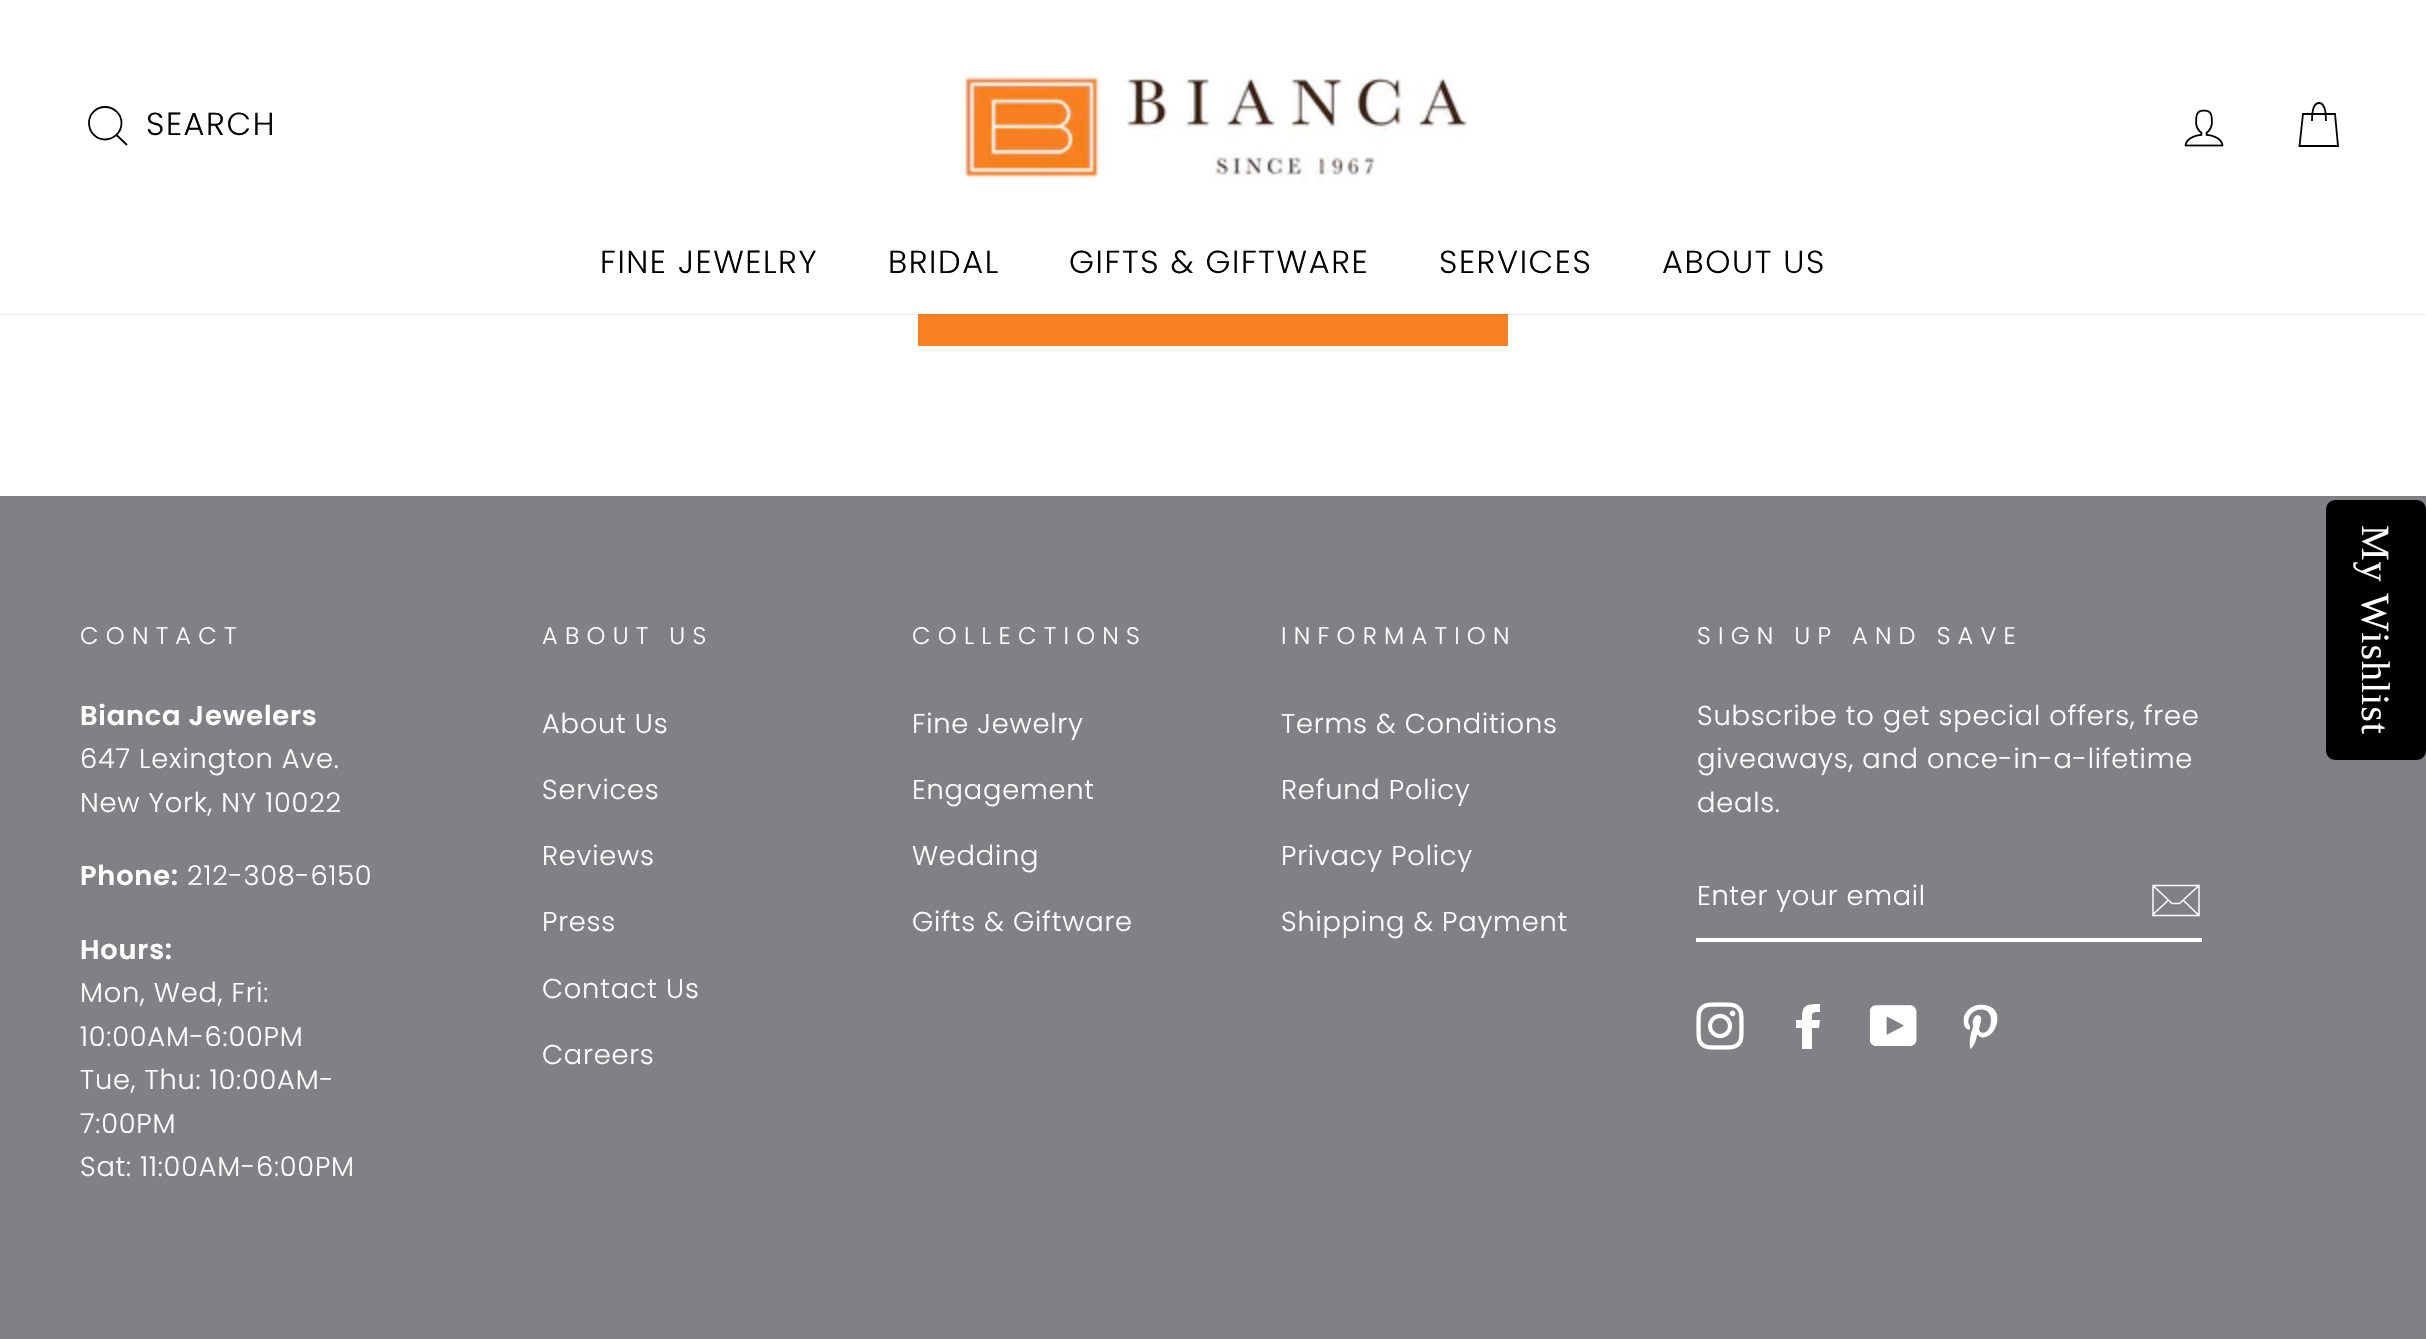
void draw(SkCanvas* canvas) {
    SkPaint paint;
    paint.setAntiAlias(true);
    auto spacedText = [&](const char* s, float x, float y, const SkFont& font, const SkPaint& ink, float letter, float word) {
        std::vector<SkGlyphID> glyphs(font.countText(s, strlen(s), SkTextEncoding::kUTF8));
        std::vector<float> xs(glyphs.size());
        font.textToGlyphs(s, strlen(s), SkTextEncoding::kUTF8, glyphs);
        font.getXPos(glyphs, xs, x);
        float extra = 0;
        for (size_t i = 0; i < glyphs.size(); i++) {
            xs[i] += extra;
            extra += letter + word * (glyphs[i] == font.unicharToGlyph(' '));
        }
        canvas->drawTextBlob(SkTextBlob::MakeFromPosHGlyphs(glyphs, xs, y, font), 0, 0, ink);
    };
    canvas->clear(0xFFFFFFFF);
    paint.setColor(0xFFF88023);
    canvas->drawRect(SkRect::MakeXYWH(918, 314, 590, 32), paint);
    paint.setColor(0x33000000);
    paint.setMaskFilter(SkMaskFilter::MakeBlur(kNormal_SkBlurStyle, 1));
    canvas->drawRect(SkRect::MakeXYWH(0, 0, 2426, 314), paint);
    paint.setMaskFilter(nullptr);
    paint.setColor(0xFFFFFFFF);
    canvas->drawRect(SkRect::MakeXYWH(0, 0, 2426, 314), paint);
    paint.setStyle(SkPaint::kStroke_Style);
    paint.setStrokeWidth(1.8f);
    paint.setColor(0xFF000000);
    canvas->drawPath(SkPathBuilder().moveTo(121.5f, 123).cubicTo(121.5f, 132, 114, 139.5f, 105, 139.5f).cubicTo(96, 139.5f, 89, 132, 89, 123).cubicTo(89, 114, 96, 107, 105, 107).cubicTo(114, 107, 121.5f, 114, 121.5f, 123).close().moveTo(127, 145).lineTo(116.5f, 135).detach(), paint);
    SkFont font1(fontMgr->matchFamilyStyle("Poppins", SkFontStyle(300, SkFontStyle::kNormal_Width, SkFontStyle::kUpright_Slant)), 32);
    font1.setSubpixel(true);
    paint.setStyle(SkPaint::kFill_Style);
    spacedText("SEARCH", 146, 135, font1, paint, 1.6f, 0);
    canvas->drawImageRect(SkImages::DeferredFromEncodedData(SkData::MakeFromFileName("img1.png")), SkRect::MakeXYWH(961, 72, 507, 112), SkSamplingOptions());
    canvas->drawImageRect(SkImages::DeferredFromEncodedData(SkData::MakeFromFileName("img2.png")), SkRect::MakeXYWH(2184, 109, 40, 38), SkSamplingOptions());
    paint.setStyle(SkPaint::kStroke_Style);
    canvas->drawPath(SkPathBuilder().moveTo(2312, 121).cubicTo(2312, 107, 2315, 103, 2319, 103).cubicTo(2323, 103, 2326, 107, 2326, 121).moveTo(2303, 114).lineTo(2335, 114).lineTo(2338, 146).lineTo(2299.5f, 146).close().detach(), paint);
    paint.setStyle(SkPaint::kFill_Style);
    spacedText("FINE JEWELRY", 600, 273, font1, paint, 1.6f, 0);
    spacedText("BRIDAL", 888, 273, font1, paint, 1.6f, 0);
    spacedText("GIFTS & GIFTWARE", 1069, 273, font1, paint, 1.6f, 0);
    spacedText("SERVICES", 1439, 273, font1, paint, 1.6f, 0);
    spacedText("ABOUT US", 1662, 273, font1, paint, 1.6f, 0);
    paint.setColor(0xFF7F8184);
    canvas->drawRect(SkRect::MakeXYWH(0, 496, 2426, 843), paint);
    SkFont font2(fontMgr->matchFamilyStyle("Poppins", SkFontStyle(300, SkFontStyle::kNormal_Width, SkFontStyle::kUpright_Slant)), 24);
    font2.setSubpixel(true);
    paint.setColor(0xFFFFFFFF);
    spacedText("CONTACT", 80, 644, font2, paint, 7.25f, 0);
    SkFont font3(fontMgr->matchFamilyStyle("Poppins", SkFontStyle(600, SkFontStyle::kNormal_Width, SkFontStyle::kUpright_Slant)), 27.25f);
    font3.setSubpixel(true);
    spacedText("Bianca Jewelers", 80, 725, font3, paint, 0.8f, 0);
    SkFont font4(fontMgr->matchFamilyStyle("Poppins", SkFontStyle(300, SkFontStyle::kNormal_Width, SkFontStyle::kUpright_Slant)), 27.25f);
    font4.setSubpixel(true);
    spacedText("647 Lexington Ave.", 80, 768, font4, paint, 0.8f, 0);
    spacedText("New York, NY 10022", 80, 812, font4, paint, 0.8f, 0);
    spacedText("Phone:", 80, 885, font3, paint, 0.8f, 0);
    spacedText("212-308-6150", 187, 885, font4, paint, 0.8f, 0);
    spacedText("Hours:", 80, 959, font3, paint, 0.8f, 0);
    spacedText("Mon, Wed, Fri:", 80, 1002, font4, paint, 0.8f, 0);
    spacedText("10:00AM-6:00PM", 80, 1046, font4, paint, 0.8f, 0);
    spacedText("Tue, Thu: 10:00AM-", 80, 1089, font4, paint, 0.8f, 0);
    spacedText("7:00PM", 80, 1133, font4, paint, 0.8f, 0);
    spacedText("Sat: 11:00AM-6:00PM", 80, 1176, font4, paint, 0.8f, 0);
    spacedText("ABOUT US", 542, 644, font2, paint, 7.25f, 0);
    spacedText("About Us", 542, 733, font4, paint, 0.8f, 0);
    spacedText("Services", 542, 799, font4, paint, 0.8f, 0);
    spacedText("Reviews", 542, 865, font4, paint, 0.8f, 0);
    spacedText("Press", 542, 931, font4, paint, 0.8f, 0);
    spacedText("Contact Us", 542, 998, font4, paint, 0.8f, 0);
    spacedText("Careers", 542, 1064, font4, paint, 0.8f, 0);
    spacedText("COLLECTIONS", 912, 644, font2, paint, 7.25f, 0);
    spacedText("Fine Jewelry", 912, 733, font4, paint, 0.8f, 0);
    spacedText("Engagement", 912, 799, font4, paint, 0.8f, 0);
    spacedText("Wedding", 912, 865, font4, paint, 0.8f, 0);
    spacedText("Gifts & Giftware", 912, 931, font4, paint, 0.8f, 0);
    spacedText("INFORMATION", 1281, 644, font2, paint, 7.25f, 0);
    spacedText("Terms & Conditions", 1281, 733, font4, paint, 0.8f, 0);
    spacedText("Refund Policy", 1281, 799, font4, paint, 0.8f, 0);
    spacedText("Privacy Policy", 1281, 865, font4, paint, 0.8f, 0);
    spacedText("Shipping & Payment", 1281, 931, font4, paint, 0.8f, 0);
    spacedText("SIGN UP AND SAVE", 1697, 644, font2, paint, 7.25f, 0);
    spacedText("Subscribe to get special offers, free", 1697, 725, font4, paint, 0.8f, 0);
    spacedText("giveaways, and once-in-a-lifetime", 1697, 768, font4, paint, 0.8f, 0);
    spacedText("deals.", 1697, 812, font4, paint, 0.8f, 0);
    canvas->drawRect(SkRect::MakeXYWH(1696, 938, 506, 4), paint);
    spacedText("Enter your email", 1697, 905, font4, paint, 0.7f, 0);
    paint.setStyle(SkPaint::kStroke_Style);
    paint.setStrokeWidth(1.5f);
    canvas->drawPath(SkPathBuilder().moveTo(2199, 915.5f).lineTo(2153, 915.5f).lineTo(2153, 885.5f).lineTo(2199, 885.5f).close().moveTo(2153, 885.5f).lineTo(2172, 903.5f).lineTo(2179.5f, 903.5f).lineTo(2199, 885.5f).moveTo(2168.5f, 900).lineTo(2153, 914.5f).moveTo(2199, 915.5f).lineTo(2183, 900).detach(), paint);
    canvas->drawImageRect(SkImages::DeferredFromEncodedData(SkData::MakeFromFileName("img3.png")), SkRect::MakeXYWH(1696, 1002, 48, 48), SkSamplingOptions());
    paint.setStyle(SkPaint::kFill_Style);
    canvas->drawPath(SkPathBuilder().moveTo(1812, 1049).lineTo(1812, 1028).lineTo(1819, 1028).lineTo(1820, 1020).lineTo(1812, 1020).cubicTo(1812, 1013, 1811, 1012, 1820, 1012).lineTo(1820, 1004).cubicTo(1805, 1004, 1802, 1005, 1802, 1020).lineTo(1796, 1020).lineTo(1796, 1028).lineTo(1802, 1028).lineTo(1802, 1049).close().detach(), paint);
    canvas->drawImageRect(SkImages::DeferredFromEncodedData(SkData::MakeFromFileName("img4.png")), SkRect::MakeXYWH(1870, 1005, 47, 41), SkSamplingOptions());
    canvas->drawImageRect(SkImages::DeferredFromEncodedData(SkData::MakeFromFileName("img5.png")), SkRect::MakeXYWH(1963, 1004, 35, 45), SkSamplingOptions());
    paint.setColor(0xFF000000);
    canvas->drawPath(SkPathBuilder().moveTo(2426, 510).lineTo(2426, 750).cubicTo(2426, 756, 2422, 760, 2416, 760).lineTo(2336, 760).cubicTo(2330, 760, 2326, 756, 2326, 750).lineTo(2326, 510).cubicTo(2326, 504, 2330, 500, 2336, 500).lineTo(2416, 500).cubicTo(2422, 500, 2426, 504, 2426, 510).close().detach(), paint);
    SkFont font5(fontMgr->matchFamilyStyle("Liberation Serif", SkFontStyle::Normal()), 40);
    font5.setSubpixel(true);
    paint.setColor(0xFFFFFFFF);
    canvas->save();
    canvas->rotate(90, 2362, 525);
    spacedText("My Wishlist", 2362, 525, font5, paint, 1, 0);
    canvas->restore();
}
